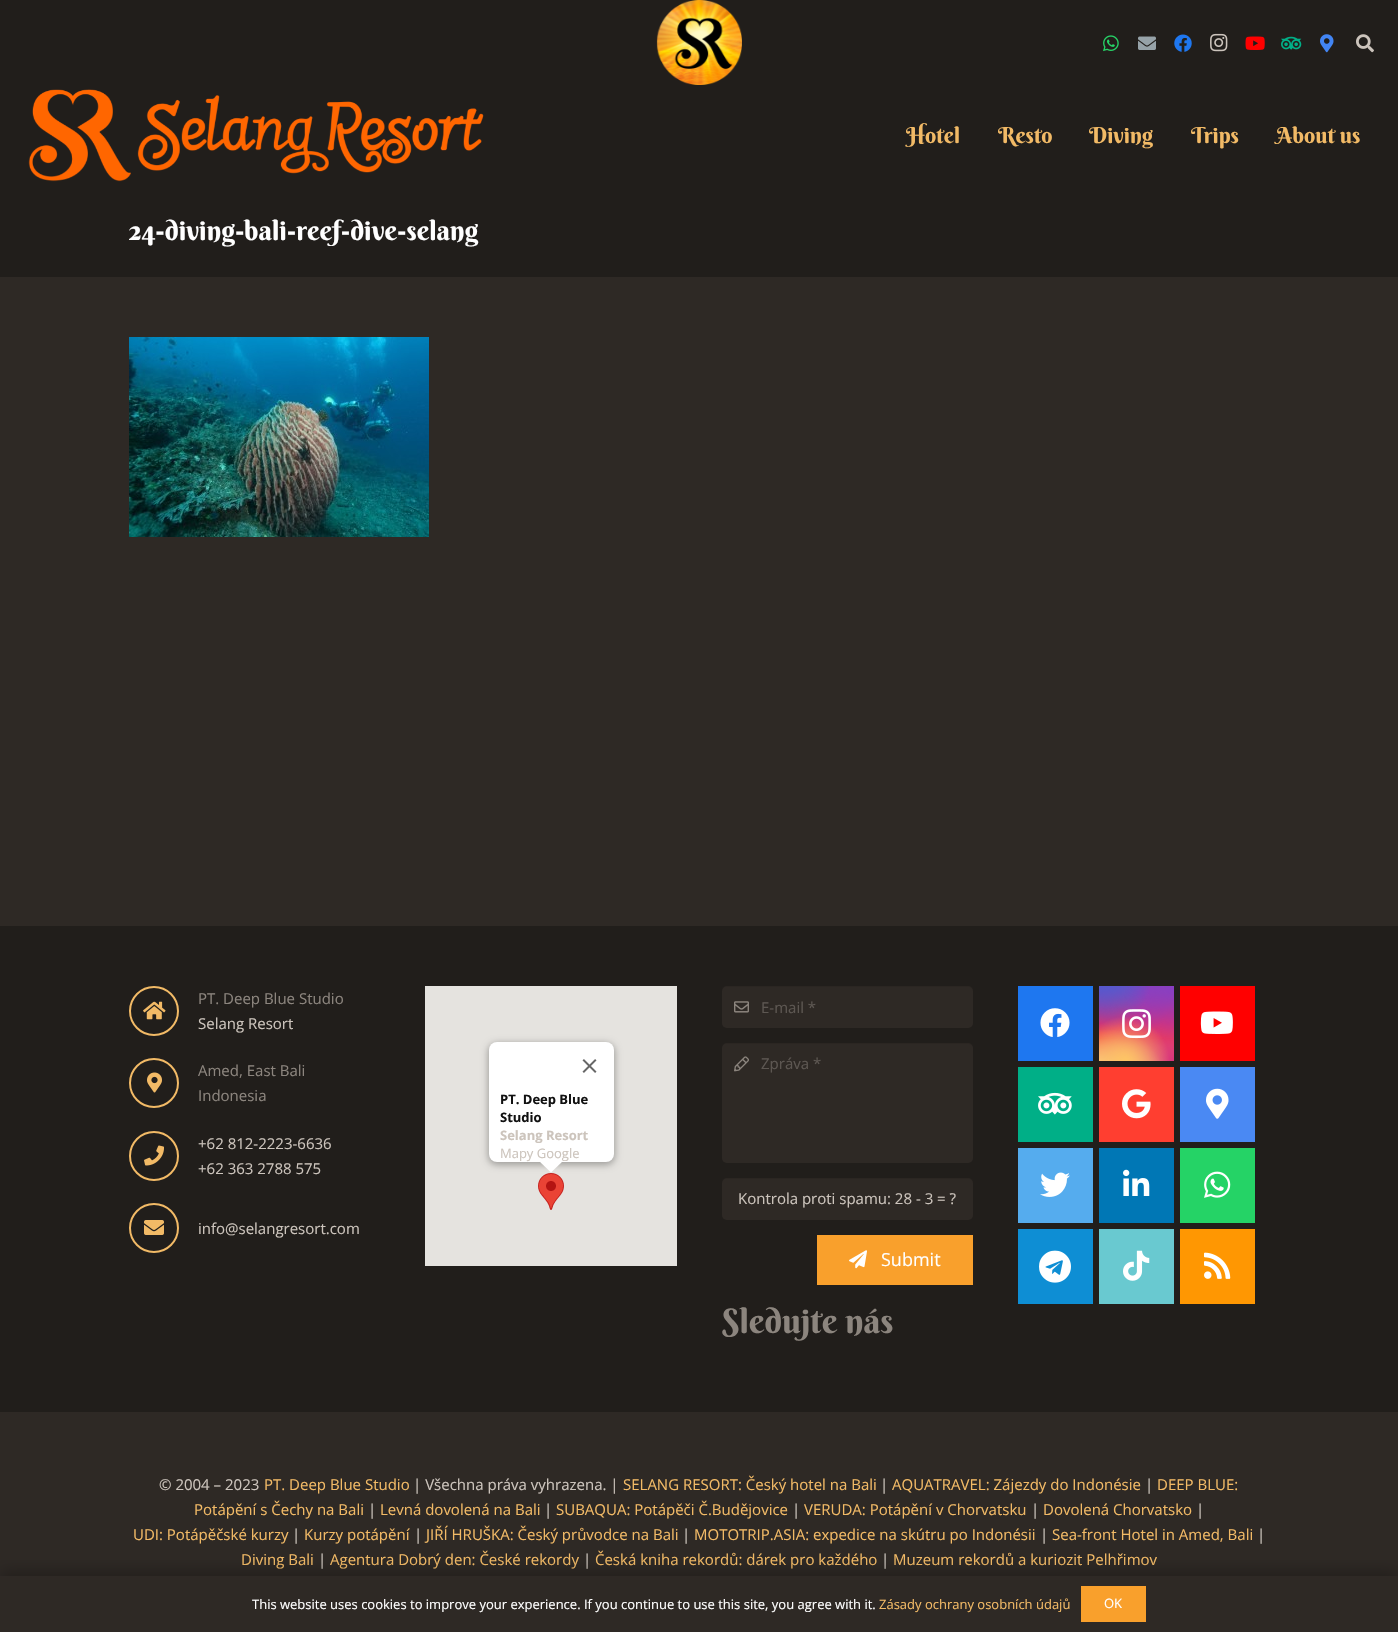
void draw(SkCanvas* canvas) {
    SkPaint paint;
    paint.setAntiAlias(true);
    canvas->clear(0xFF2E2925);
    paint.setColor(0xFF211E1B);
    canvas->drawRect(SkRect::MakeXYWH(0, 0, 1398, 277), paint);
    canvas->drawImageRect(SkImages::DeferredFromEncodedData(SkData::MakeFromFileName("img1.png")), SkRect::MakeXYWH(656, 0, 86, 85), SkSamplingOptions());
    canvas->drawImageRect(SkImages::DeferredFromEncodedData(SkData::MakeFromFileName("img2.png")), SkRect::MakeXYWH(1103, 35, 16, 17), SkSamplingOptions());
    canvas->drawImageRect(SkImages::DeferredFromEncodedData(SkData::MakeFromFileName("img3.png")), SkRect::MakeXYWH(1138, 36, 18, 14), SkSamplingOptions());
    canvas->drawImageRect(SkImages::DeferredFromEncodedData(SkData::MakeFromFileName("img4.png")), SkRect::MakeXYWH(1174, 34, 18, 18), SkSamplingOptions());
    canvas->drawImageRect(SkImages::DeferredFromEncodedData(SkData::MakeFromFileName("img5.png")), SkRect::MakeXYWH(1210, 33, 18, 19), SkSamplingOptions());
    canvas->drawImageRect(SkImages::DeferredFromEncodedData(SkData::MakeFromFileName("img6.png")), SkRect::MakeXYWH(1245, 36, 20, 14), SkSamplingOptions());
    canvas->drawImageRect(SkImages::DeferredFromEncodedData(SkData::MakeFromFileName("img7.png")), SkRect::MakeXYWH(1281, 36, 21, 14), SkSamplingOptions());
    canvas->drawImageRect(SkImages::DeferredFromEncodedData(SkData::MakeFromFileName("img8.png")), SkRect::MakeXYWH(1320, 34, 14, 19), SkSamplingOptions());
    canvas->drawImageRect(SkImages::DeferredFromEncodedData(SkData::MakeFromFileName("img9.png")), SkRect::MakeXYWH(1356, 34, 18, 19), SkSamplingOptions());
    canvas->drawImageRect(SkImages::DeferredFromEncodedData(SkData::MakeFromFileName("img10.png")), SkRect::MakeXYWH(28, 89, 456, 93), SkSamplingOptions());
    SkFont font1(fontMgr->matchFamilyStyle("Berkshire Swash", SkFontStyle::Normal()), 22);
    font1.setSubpixel(true);
    paint.setColor(0xFFF2BA66);
    canvas->drawString("Hotel", 906, 143, font1, paint);
    canvas->drawString("Resto", 998, 143, font1, paint);
    canvas->drawString("Diving", 1089, 143, font1, paint);
    canvas->drawString("Trips", 1191, 143, font1, paint);
    canvas->drawString("About us", 1276, 143, font1, paint);
    SkFont font2(fontMgr->matchFamilyStyle("Berkshire Swash", SkFontStyle::Normal()), 27);
    font2.setSubpixel(true);
    paint.setColor(0xFFFFFFFF);
    canvas->drawString("24-diving-bali-reef-dive-selang", 129, 240, font2, paint);
    canvas->drawImageRect(SkImages::DeferredFromEncodedData(SkData::MakeFromFileName("img11.png")), SkRect::MakeXYWH(129, 337, 300, 200), SkSamplingOptions());
    paint.setColor(0xFF211E1B);
    canvas->drawRect(SkRect::MakeXYWH(0, 926, 1398, 486), paint);
    paint.setStyle(SkPaint::kStroke_Style);
    paint.setStrokeWidth(2);
    paint.setColor(0xFFF2BA66);
    canvas->drawCircle(154, 1011, 24, paint);
    canvas->drawImageRect(SkImages::DeferredFromEncodedData(SkData::MakeFromFileName("img12.png")), SkRect::MakeXYWH(143, 1001, 23, 19), SkSamplingOptions());
    SkFont font3(fontMgr->matchFamilyStyle("Open Sans", SkFontStyle::Normal()), 15);
    font3.setSubpixel(true);
    paint.setStyle(SkPaint::kFill_Style);
    paint.setColor(0xFF8C857E);
    canvas->drawString("PT. Deep Blue Studio", 198, 1004, font3, paint);
    paint.setColor(0xFFCCC4BC);
    canvas->drawString("Selang Resort", 198, 1029, font3, paint);
    paint.setStyle(SkPaint::kStroke_Style);
    paint.setColor(0xFFF2BA66);
    canvas->drawCircle(154, 1083, 24, paint);
    canvas->drawImageRect(SkImages::DeferredFromEncodedData(SkData::MakeFromFileName("img13.png")), SkRect::MakeXYWH(147, 1072, 15, 21), SkSamplingOptions());
    paint.setStyle(SkPaint::kFill_Style);
    paint.setColor(0xFF8C857E);
    canvas->drawString("Amed, East Bali", 198, 1076, font3, paint);
    canvas->drawString("Indonesia", 198, 1101, font3, paint);
    paint.setStyle(SkPaint::kStroke_Style);
    paint.setColor(0xFFF2BA66);
    canvas->drawCircle(154, 1156, 24, paint);
    canvas->drawImageRect(SkImages::DeferredFromEncodedData(SkData::MakeFromFileName("img14.png")), SkRect::MakeXYWH(144, 1145, 20, 21), SkSamplingOptions());
    paint.setStyle(SkPaint::kFill_Style);
    paint.setColor(0xFFCCC4BC);
    canvas->drawString("+62 812-2223-6636", 198, 1149, font3, paint);
    canvas->drawString("+62 363 2788 575", 198, 1174, font3, paint);
    paint.setStyle(SkPaint::kStroke_Style);
    paint.setColor(0xFFF2BA66);
    canvas->drawCircle(154, 1228, 24, paint);
    canvas->drawImageRect(SkImages::DeferredFromEncodedData(SkData::MakeFromFileName("img15.png")), SkRect::MakeXYWH(144, 1220, 20, 15), SkSamplingOptions());
    paint.setStyle(SkPaint::kFill_Style);
    paint.setColor(0xFFCCC4BC);
    canvas->drawString("info@selangresort.com", 198, 1234, font3, paint);
    paint.setColor(0xFFE5E3DF);
    canvas->drawRect(SkRect::MakeXYWH(425, 986, 252, 280), paint);
    canvas->drawImageRect(SkImages::DeferredFromEncodedData(SkData::MakeFromFileName("img17.png")), SkRect::MakeXYWH(538, 1173, 26, 37), SkSamplingOptions());
    paint.setColor(0x4D000000);
    paint.setMaskFilter(SkMaskFilter::MakeBlur(kNormal_SkBlurStyle, 3.5f));
    canvas->drawRoundRect(SkRect::MakeXYWH(488, 1043, 127, 122), 9, 9, paint);
    paint.setMaskFilter(nullptr);
    paint.setColor(0xFFFFFFFF);
    canvas->drawRoundRect(SkRect::MakeXYWH(489, 1042, 125, 120), 8, 8, paint);
    canvas->drawImageRect(SkImages::DeferredFromEncodedData(SkData::MakeFromFileName("img16.png")), SkRect::MakeXYWH(582, 1059, 15, 14), SkSamplingOptions());
    SkFont font4(fontMgr->matchFamilyStyle("Open Sans", SkFontStyle::Bold()), 13);
    font4.setSubpixel(true);
    paint.setColor(0xFF111111);
    canvas->drawString("PT. Deep Blue", 500, 1104, font4, paint);
    canvas->drawString("Studio", 500, 1122, font4, paint);
    paint.setColor(0xFFCCC4BC);
    canvas->drawString("Selang Resort", 500, 1140, font4, paint);
    SkFont font5(fontMgr->matchFamilyStyle("Open Sans", SkFontStyle::Normal()), 13);
    font5.setSubpixel(true);
    canvas->drawString("Mapy Google", 500, 1158, font5, paint);
    paint.setColor(0xFFFFFFFF);
    canvas->drawPath(SkPathBuilder().moveTo(539, 1161).lineTo(551, 1172.5f).lineTo(563, 1161).close().detach(), paint);
    paint.setColor(0xFF2E2925);
    canvas->drawRoundRect(SkRect::MakeXYWH(722, 986, 251, 42), 5, 5, paint);
    canvas->drawImageRect(SkImages::DeferredFromEncodedData(SkData::MakeFromFileName("img18.png")), SkRect::MakeXYWH(734, 1001, 15, 12), SkSamplingOptions());
    paint.setColor(0x14000000);
    canvas->drawPath(SkPathBuilder().moveTo(726, 987).lineTo(968, 987).cubicTo(971, 987, 973, 989, 973, 992).lineTo(973, 991).cubicTo(973, 988, 971, 986, 968, 986).lineTo(727, 986).cubicTo(724, 986, 722, 988, 722, 991).lineTo(722, 992).cubicTo(722, 989, 724, 987, 726, 987).close().detach(), paint);
    paint.setColor(0xFF5D5752);
    canvas->drawString("E-mail *", 761, 1013, font3, paint);
    paint.setColor(0xFF2E2925);
    canvas->drawRoundRect(SkRect::MakeXYWH(722, 1043, 251, 120), 5, 5, paint);
    canvas->drawImageRect(SkImages::DeferredFromEncodedData(SkData::MakeFromFileName("img19.png")), SkRect::MakeXYWH(734, 1056, 15, 16), SkSamplingOptions());
    paint.setColor(0x14000000);
    canvas->drawPath(SkPathBuilder().moveTo(726, 1044).lineTo(968, 1044).cubicTo(971, 1044, 973, 1046, 973, 1048).cubicTo(973, 1045, 971, 1043, 968, 1043).lineTo(727, 1043).cubicTo(724, 1043, 722, 1045, 722, 1048).cubicTo(722, 1046, 724, 1044, 726, 1044).close().detach(), paint);
    paint.setColor(0xFF5D5752);
    canvas->drawString("Zpráva *", 761, 1069, font3, paint);
    paint.setColor(0xFF2E2925);
    canvas->drawRoundRect(SkRect::MakeXYWH(722, 1178, 251, 42), 5, 5, paint);
    paint.setColor(0x14000000);
    canvas->drawPath(SkPathBuilder().moveTo(726, 1179).lineTo(968, 1179).cubicTo(971, 1179, 973, 1181, 973, 1184).lineTo(973, 1183).cubicTo(973, 1180, 971, 1178, 968, 1178).lineTo(727, 1178).cubicTo(724, 1178, 722, 1180, 722, 1183).lineTo(722, 1184).cubicTo(722, 1181, 724, 1179, 726, 1179).close().detach(), paint);
    paint.setColor(0xFFCCC4BC);
    canvas->drawString("Kontrola proti spamu: 28 - 3 = ?", 738, 1204, font3, paint);
    paint.setColor(0xFFF9A02C);
    canvas->drawRect(SkRect::MakeXYWH(817, 1235, 156, 50), paint);
    canvas->drawImageRect(SkImages::DeferredFromEncodedData(SkData::MakeFromFileName("img20.png")), SkRect::MakeXYWH(849, 1250, 18, 19), SkSamplingOptions());
    SkFont font6(fontMgr->matchFamilyStyle("Open Sans", SkFontStyle::Normal()), 18);
    font6.setSubpixel(true);
    paint.setColor(0xFFFFFFFF);
    canvas->drawString("Submit", 881, 1266, font6, paint);
    SkFont font7(fontMgr->matchFamilyStyle("Berkshire Swash", SkFontStyle::Normal()), 34);
    font7.setSubpixel(true);
    paint.setColor(0xFF8C857E);
    canvas->drawString("Sledujte nás", 722, 1333, font7, paint);
    paint.setColor(0xFF1E77F0);
    canvas->drawRect(SkRect::MakeXYWH(1018, 986, 75, 75), paint);
    canvas->drawImageRect(SkImages::DeferredFromEncodedData(SkData::MakeFromFileName("img21.png")), SkRect::MakeXYWH(1040, 1008, 30, 29), SkSamplingOptions());
    {
        const SkColor colors[] = {0xFF6559CA, 0xFFBC318F, 0xFFE42E66, 0xFFFA5332, 0xFFFFDC80};
        const float stops[] = {0, 0.3f, 0.5f, 0.7f, 1};
        const SkPoint ends[] = {{1137, 986}, {1137, 1061}};
        paint.setShader(SkGradientShader::MakeLinear(ends, colors, stops, 5, SkTileMode::kClamp));
        paint.setAlpha(255);
    }
    canvas->drawRect(SkRect::MakeXYWH(1099, 986, 75, 75), paint);
    {
        const SkColor colors[] = {0xFFD9317A, 0x00D9317A};
        const float stops[] = {0, 1};
        paint.setShader(SkGradientShader::MakeRadial({1174, 1061}, 106, colors, stops, 2, SkTileMode::kClamp));
        paint.setAlpha(255);
    }
    canvas->drawRect(SkRect::MakeXYWH(1099, 986, 75, 75), paint);
    {
        const SkColor colors[] = {0xFF893DC2, 0x00893DC2};
        const float stops[] = {0, 0.5f};
        SkMatrix m = SkMatrix::Translate(1144, 971).preScale(64, 127);
        paint.setShader(SkGradientShader::MakeRadial({0, 0}, 1, colors, stops, 2, SkTileMode::kClamp, 0, &m));
        paint.setAlpha(255);
    }
    canvas->drawRect(SkRect::MakeXYWH(1116, 986, 56, 47), paint);
    {
        const SkColor colors[] = {0xFF893DC2, 0x00893DC2};
        const float stops[] = {0, 0.5f};
        paint.setShader(SkGradientShader::MakeRadial({1174, 986}, 106, colors, stops, 2, SkTileMode::kClamp));
        paint.setAlpha(255);
    }
    canvas->drawRect(SkRect::MakeXYWH(1127, 986, 47, 52), paint);
    {
        const SkColor colors[] = {0xFF5258CF, 0x005258CF};
        const float stops[] = {0, 0.5f};
        SkMatrix m = SkMatrix::Translate(1114, 949).preScale(85, 159);
        paint.setShader(SkGradientShader::MakeRadial({0, 0}, 1, colors, stops, 2, SkTileMode::kClamp, 0, &m));
        paint.setAlpha(255);
    }
    canvas->drawRect(SkRect::MakeXYWH(1099, 986, 50, 41), paint);
    {
        const SkColor colors[] = {0xFF5258CF, 0x005258CF};
        const float stops[] = {0, 0.5f};
        SkMatrix m = SkMatrix::Translate(1099, 967).preScale(106, 133);
        paint.setShader(SkGradientShader::MakeRadial({0, 0}, 1, colors, stops, 2, SkTileMode::kClamp, 0, &m));
        paint.setAlpha(255);
    }
    canvas->drawRect(SkRect::MakeXYWH(1099, 986, 48, 46), paint);
    {
        const SkColor colors[] = {0xFFFEDA7E, 0x00FEDA7E};
        const float stops[] = {0, 0.5f};
        paint.setShader(SkGradientShader::MakeRadial({1107, 1091}, 125, colors, stops, 2, SkTileMode::kClamp));
        paint.setAlpha(255);
    }
    canvas->drawRect(SkRect::MakeXYWH(1099, 1030, 61, 31), paint);
    {
        const SkColor colors[] = {0xFFFEC564, 0x00FEC564};
        const float stops[] = {0, 0.5f};
        paint.setShader(SkGradientShader::MakeRadial({1125, 1061}, 89, colors, stops, 2, SkTileMode::kClamp));
        paint.setAlpha(255);
    }
    canvas->drawRect(SkRect::MakeXYWH(1099, 1017, 70, 44), paint);
    canvas->drawImageRect(SkImages::DeferredFromEncodedData(SkData::MakeFromFileName("img22.png")), SkRect::MakeXYWH(1122, 1009, 29, 30), SkSamplingOptions());
    paint.setShader(nullptr);
    paint.setColor(0xFFFF0000);
    canvas->drawRect(SkRect::MakeXYWH(1180, 986, 75, 75), paint);
    canvas->drawImageRect(SkImages::DeferredFromEncodedData(SkData::MakeFromFileName("img23.png")), SkRect::MakeXYWH(1200, 1011, 33, 23), SkSamplingOptions());
    paint.setColor(0xFF00AF87);
    canvas->drawRect(SkRect::MakeXYWH(1018, 1067, 75, 75), paint);
    canvas->drawImageRect(SkImages::DeferredFromEncodedData(SkData::MakeFromFileName("img24.png")), SkRect::MakeXYWH(1038, 1092, 34, 23), SkSamplingOptions());
    paint.setColor(0xFFFF3E30);
    canvas->drawRect(SkRect::MakeXYWH(1099, 1067, 75, 75), paint);
    canvas->drawImageRect(SkImages::DeferredFromEncodedData(SkData::MakeFromFileName("img25.png")), SkRect::MakeXYWH(1122, 1089, 29, 30), SkSamplingOptions());
    paint.setColor(0xFF4A89F3);
    canvas->drawRect(SkRect::MakeXYWH(1180, 1067, 75, 75), paint);
    canvas->drawImageRect(SkImages::DeferredFromEncodedData(SkData::MakeFromFileName("img26.png")), SkRect::MakeXYWH(1206, 1088, 23, 31), SkSamplingOptions());
    paint.setColor(0xFF55ACEE);
    canvas->drawRect(SkRect::MakeXYWH(1018, 1148, 75, 75), paint);
    canvas->drawImageRect(SkImages::DeferredFromEncodedData(SkData::MakeFromFileName("img27.png")), SkRect::MakeXYWH(1040, 1172, 30, 25), SkSamplingOptions());
    paint.setColor(0xFF0077B5);
    canvas->drawRect(SkRect::MakeXYWH(1099, 1148, 75, 75), paint);
    canvas->drawImageRect(SkImages::DeferredFromEncodedData(SkData::MakeFromFileName("img28.png")), SkRect::MakeXYWH(1123, 1169, 27, 27), SkSamplingOptions());
    paint.setColor(0xFF25D366);
    canvas->drawRect(SkRect::MakeXYWH(1180, 1148, 75, 75), paint);
    canvas->drawImageRect(SkImages::DeferredFromEncodedData(SkData::MakeFromFileName("img29.png")), SkRect::MakeXYWH(1204, 1171, 27, 27), SkSamplingOptions());
    paint.setColor(0xFF0E8ED4);
    canvas->drawRect(SkRect::MakeXYWH(1018, 1229, 75, 75), paint);
    canvas->drawImageRect(SkImages::DeferredFromEncodedData(SkData::MakeFromFileName("img30.png")), SkRect::MakeXYWH(1039, 1250, 32, 33), SkSamplingOptions());
    paint.setColor(0xFF69C9D0);
    canvas->drawRect(SkRect::MakeXYWH(1099, 1229, 75, 75), paint);
    canvas->drawImageRect(SkImages::DeferredFromEncodedData(SkData::MakeFromFileName("img31.png")), SkRect::MakeXYWH(1123, 1250, 27, 31), SkSamplingOptions());
    paint.setColor(0xFFFF9702);
    canvas->drawRect(SkRect::MakeXYWH(1180, 1229, 75, 75), paint);
    canvas->drawImageRect(SkImages::DeferredFromEncodedData(SkData::MakeFromFileName("img32.png")), SkRect::MakeXYWH(1204, 1252, 27, 27), SkSamplingOptions());
    paint.setColor(0xFFCCC4BC);
    canvas->drawString("© 2004 – 2023", 159, 1490, font3, paint);
    paint.setColor(0xFFF2BA66);
    canvas->drawString("PT. Deep Blue Studio", 264, 1490, font3, paint);
    paint.setColor(0xFFCCC4BC);
    canvas->drawString("| Všechna práva vyhrazena. |", 413, 1490, font3, paint);
    paint.setColor(0xFFF2BA66);
    canvas->drawString("SELANG RESORT: Český hotel na Bali", 623, 1490, font3, paint);
    paint.setColor(0xFFCCC4BC);
    canvas->drawString("|", 880, 1490, font3, paint);
    paint.setColor(0xFFF2BA66);
    canvas->drawString("AQUATRAVEL: Zájezdy do Indonésie", 892, 1490, font3, paint);
    paint.setColor(0xFFCCC4BC);
    canvas->drawString("|", 1145, 1490, font3, paint);
    paint.setColor(0xFFF2BA66);
    canvas->drawString("DEEP BLUE:", 1157, 1490, font3, paint);
    canvas->drawString("Potápění s Čechy na Bali", 194, 1515, font3, paint);
    paint.setColor(0xFFCCC4BC);
    canvas->drawString("|", 368, 1515, font3, paint);
    paint.setColor(0xFFF2BA66);
    canvas->drawString("Levná dovolená na Bali", 380, 1515, font3, paint);
    paint.setColor(0xFFCCC4BC);
    canvas->drawString("|", 544, 1515, font3, paint);
    paint.setColor(0xFFF2BA66);
    canvas->drawString("SUBAQUA: Potápěči Č.Budějovice", 556, 1515, font3, paint);
    paint.setColor(0xFFCCC4BC);
    canvas->drawString("|", 792, 1515, font3, paint);
    paint.setColor(0xFFF2BA66);
    canvas->drawString("VERUDA: Potápění v Chorvatsku", 804, 1515, font3, paint);
    paint.setColor(0xFFCCC4BC);
    canvas->drawString("|", 1031, 1515, font3, paint);
    paint.setColor(0xFFF2BA66);
    canvas->drawString("Dovolená Chorvatsko", 1043, 1515, font3, paint);
    paint.setColor(0xFFCCC4BC);
    canvas->drawString("|", 1196, 1515, font3, paint);
    paint.setColor(0xFFF2BA66);
    canvas->drawString("UDI: Potápěčské kurzy", 133, 1540, font3, paint);
    paint.setColor(0xFFCCC4BC);
    canvas->drawString("|", 292, 1540, font3, paint);
    paint.setColor(0xFFF2BA66);
    canvas->drawString("Kurzy potápění", 304, 1540, font3, paint);
    paint.setColor(0xFFCCC4BC);
    canvas->drawString("|", 414, 1540, font3, paint);
    paint.setColor(0xFFF2BA66);
    canvas->drawString("JIŘÍ HRUŠKA: Český průvodce na Bali", 426, 1540, font3, paint);
    paint.setColor(0xFFCCC4BC);
    canvas->drawString("|", 682, 1540, font3, paint);
    paint.setColor(0xFFF2BA66);
    canvas->drawString("MOTOTRIP.ASIA: expedice na skútru po Indonésii", 694, 1540, font3, paint);
    paint.setColor(0xFFCCC4BC);
    canvas->drawString("|", 1040, 1540, font3, paint);
    paint.setColor(0xFFF2BA66);
    canvas->drawString("Sea-front Hotel in Amed, Bali", 1052, 1540, font3, paint);
    paint.setColor(0xFFCCC4BC);
    canvas->drawString("|", 1257, 1540, font3, paint);
    paint.setColor(0xFFF2BA66);
    canvas->drawString("Diving Bali", 241, 1565, font3, paint);
    paint.setColor(0xFFCCC4BC);
    canvas->drawString("|", 318, 1565, font3, paint);
    paint.setColor(0xFFF2BA66);
    canvas->drawString("Agentura Dobrý den: České rekordy", 330, 1565, font3, paint);
    paint.setColor(0xFFCCC4BC);
    canvas->drawString("|", 583, 1565, font3, paint);
    paint.setColor(0xFFF2BA66);
    canvas->drawString("Česká kniha rekordů: dárek pro každého", 595, 1565, font3, paint);
    paint.setColor(0xFFCCC4BC);
    canvas->drawString("|", 881, 1565, font3, paint);
    paint.setColor(0xFFF2BA66);
    canvas->drawString("Muzeum rekordů a kuriozit Pelhřimov", 893, 1565, font3, paint);
    canvas->save();
    canvas->clipRect(SkRect::MakeXYWH(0, 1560, 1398, 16));
    paint.setColor(0x40000000);
    paint.setMaskFilter(SkMaskFilter::MakeBlur(kNormal_SkBlurStyle, 7.5f));
    canvas->drawRect(SkRect::MakeXYWH(0, 1571, 1398, 56), paint);
    paint.setMaskFilter(nullptr);
    canvas->restore();
    paint.setColor(0xFFFFFFFF);
    canvas->drawString("This website uses cookies to improve your experience. If you continue to use this site, you agree with it.", 252, 1609, font5, paint);
    paint.setColor(0xFFF2BA66);
    canvas->drawString("Zásady ochrany osobních údajů", 879, 1609, font5, paint);
    paint.setColor(0xFFF9A02C);
    canvas->drawRect(SkRect::MakeXYWH(1081, 1586, 65, 36), paint);
    paint.setColor(0xFFFFFFFF);
    canvas->drawString("OK", 1104, 1608, font5, paint);
}
